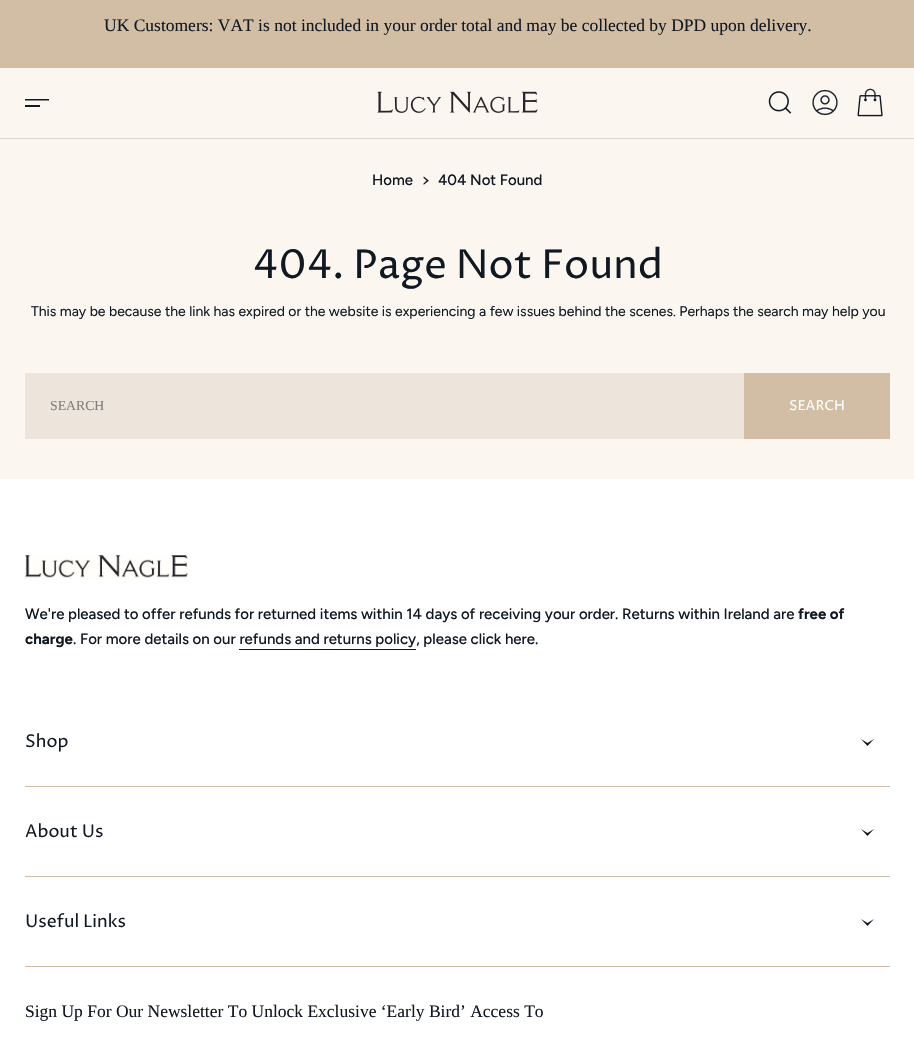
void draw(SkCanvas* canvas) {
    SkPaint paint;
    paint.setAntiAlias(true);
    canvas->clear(0xFFFBF6EF);
    paint.setColor(0xFFD1BEA4);
    canvas->drawRect(SkRect::MakeXYWH(0, 0, 914, 68), paint);
    SkFont font1(fontMgr->matchFamilyStyle("Liberation Serif", SkFontStyle::Normal()), 17.5f);
    font1.setSubpixel(true);
    paint.setColor(0xFF101822);
    canvas->drawString("UK Customers: VAT is not included in your order total and may be collected by DPD upon delivery.", 104, 31, font1, paint);
    paint.setColor(0xFFDBD8CF);
    canvas->drawRect(SkRect::MakeXYWH(0, 138, 914, 1), paint);
    paint.setColor(0xFF101822);
    canvas->drawPath(SkPathBuilder(SkPathFillType::kEvenOdd).moveTo(49, 99).lineTo(25, 99).lineTo(25, 100.5f).lineTo(49, 100.5f).close().moveTo(40, 105).lineTo(25, 105).lineTo(25, 107).lineTo(40, 107).close().detach(), paint);
    canvas->drawImageRect(SkImages::DeferredFromEncodedData(SkData::MakeFromFileName("img1.png")), SkRect::MakeXYWH(377, 91, 161, 22), SkSamplingOptions());
    canvas->drawImageRect(SkImages::DeferredFromEncodedData(SkData::MakeFromFileName("img2.png")), SkRect::MakeXYWH(768, 91, 24, 23), SkSamplingOptions());
    canvas->drawImageRect(SkImages::DeferredFromEncodedData(SkData::MakeFromFileName("img3.png")), SkRect::MakeXYWH(812, 89, 26, 27), SkSamplingOptions());
    canvas->drawImageRect(SkImages::DeferredFromEncodedData(SkData::MakeFromFileName("img4.png")), SkRect::MakeXYWH(857, 88, 26, 29), SkSamplingOptions());
    SkFont font2(fontMgr->matchFamilyStyle("Figtree", SkFontStyle(500, SkFontStyle::kNormal_Width, SkFontStyle::kUpright_Slant)), 15);
    font2.setSubpixel(true);
    canvas->drawString("Home", 372, 185, font2, paint);
    canvas->drawImageRect(SkImages::DeferredFromEncodedData(SkData::MakeFromFileName("img5.png")), SkRect::MakeXYWH(423, 176, 6, 9), SkSamplingOptions());
    canvas->drawString("404 Not Found", 438, 185, font2, paint);
    SkFont font3(fontMgr->matchFamilyStyle("Proza Libre", SkFontStyle::Normal()), 40);
    font3.setSubpixel(true);
    canvas->drawString("404. Page Not Found", 253, 278, font3, paint);
    SkFont font4(fontMgr->matchFamilyStyle("Figtree", SkFontStyle::Normal()), 14);
    font4.setSubpixel(true);
    canvas->drawString("This may be because the link has expired or the website is experiencing a few issues behind the scenes. Perhaps the search may help you", 31, 316, font4, paint);
    paint.setColor(0xFFEDE4DC);
    canvas->drawRect(SkRect::MakeXYWH(25, 373, 719, 66), paint);
    SkFont font5(fontMgr->matchFamilyStyle("Liberation Serif", SkFontStyle::Normal()), 13.75f);
    font5.setSubpixel(true);
    paint.setColor(0xFF7F7E7F);
    canvas->drawString("SEARCH", 50, 410, font5, paint);
    paint.setColor(0xFFD1BEA4);
    canvas->drawRect(SkRect::MakeXYWH(744, 373, 146, 66), paint);
    SkFont font6(fontMgr->matchFamilyStyle("Proza Libre", SkFontStyle::Normal()), 13.75f);
    font6.setSubpixel(true);
    paint.setColor(0xFFFFFFFF);
    canvas->drawString("SEARCH", 789, 410, font6, paint);
    canvas->drawRect(SkRect::MakeXYWH(0, 479, 914, 559), paint);
    canvas->drawImageRect(SkImages::DeferredFromEncodedData(SkData::MakeFromFileName("img6.png")), SkRect::MakeXYWH(25, 555, 163, 24), SkSamplingOptions());
    paint.setColor(0xFF101822);
    canvas->drawString("We're pleased to offer refunds for returned items within 14 days of receiving your order. Returns within Ireland are", 25, 619, font2, paint);
    SkFont font7(fontMgr->matchFamilyStyle("Figtree", SkFontStyle::Bold()), 15);
    font7.setSubpixel(true);
    canvas->drawString("free of", 798, 619, font7, paint);
    canvas->drawString("charge", 25, 644, font7, paint);
    canvas->drawString(". For more details on our refunds and returns policy, please click here.", 73, 644, font2, paint);
    canvas->drawRect(SkRect::MakeXYWH(239, 649, 177, 1), paint);
    paint.setColor(0xFFD1BEA4);
    canvas->drawRect(SkRect::MakeXYWH(25, 786, 865, 1), paint);
    SkFont font8(fontMgr->matchFamilyStyle("Proza Libre", SkFontStyle::Normal()), 17.5f);
    font8.setSubpixel(true);
    paint.setColor(0xFF101822);
    canvas->drawString("Shop", 25, 747, font8, paint);
    canvas->drawPath(SkPathBuilder().moveTo(867.5f, 746).lineTo(861, 739).lineTo(867.5f, 743).lineTo(874, 739).close().detach(), paint);
    paint.setColor(0xFFD1BEA4);
    canvas->drawRect(SkRect::MakeXYWH(25, 876, 865, 1), paint);
    paint.setColor(0xFF101822);
    canvas->drawString("About Us", 25, 837, font8, paint);
    canvas->drawPath(SkPathBuilder().moveTo(867.5f, 836).lineTo(861, 829).lineTo(867.5f, 833).lineTo(874, 829).close().detach(), paint);
    paint.setColor(0xFFD1BEA4);
    canvas->drawRect(SkRect::MakeXYWH(25, 966, 865, 1), paint);
    paint.setColor(0xFF101822);
    canvas->drawString("Useful Links", 25, 927, font8, paint);
    canvas->drawPath(SkPathBuilder().moveTo(867.5f, 926).lineTo(861, 919).lineTo(867.5f, 923).lineTo(874, 919).close().detach(), paint);
    canvas->drawString("Sign Up For Our Newsletter To Unlock Exclusive ‘Early Bird’ Access To", 25, 1017, font1, paint);
}
